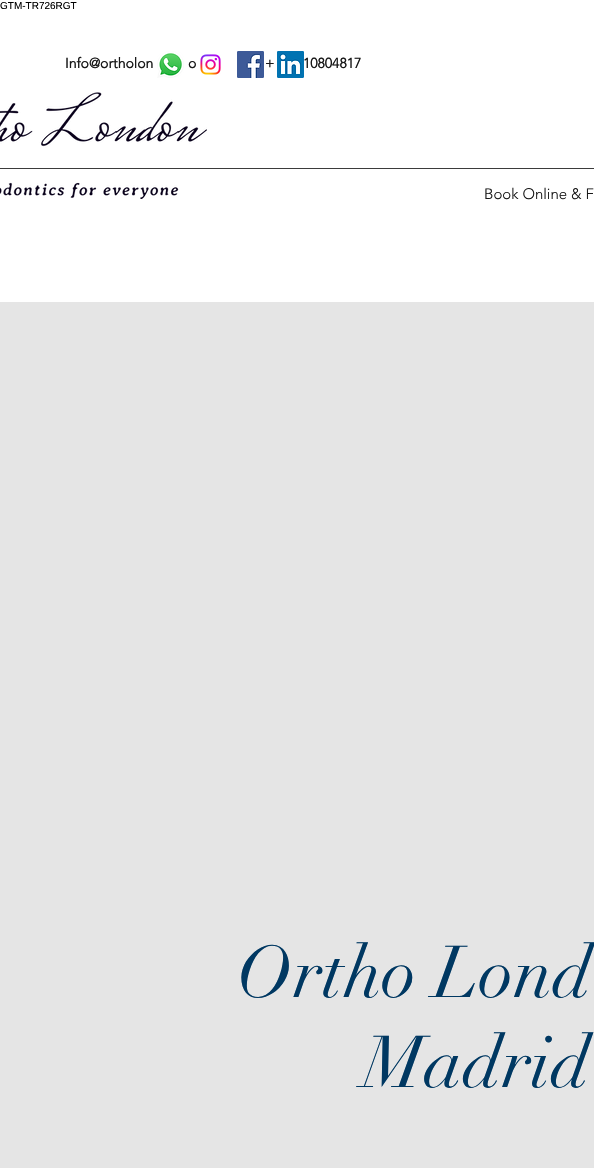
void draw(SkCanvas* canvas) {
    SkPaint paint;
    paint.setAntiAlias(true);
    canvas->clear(0xFFFFFFFF);
    SkFont font1(fontMgr->matchFamilyStyle("Liberation Sans", SkFontStyle::Normal()), 10);
    font1.setSubpixel(true);
    paint.setColor(0xFF000000);
    canvas->drawString("GTM-TR726RGT", 0, 9, font1, paint);
    canvas->drawImageRect(SkImages::DeferredFromEncodedData(SkData::MakeFromFileName("img1.png")), SkRect::MakeXYWH(157, 51, 27, 27), SkSamplingOptions());
    canvas->drawImageRect(SkImages::DeferredFromEncodedData(SkData::MakeFromFileName("img2.png")), SkRect::MakeXYWH(200, 54, 21, 21), SkSamplingOptions());
    canvas->drawImageRect(SkImages::DeferredFromEncodedData(SkData::MakeFromFileName("img3.png")), SkRect::MakeXYWH(237, 51, 27, 27), SkSamplingOptions());
    canvas->drawImageRect(SkImages::DeferredFromEncodedData(SkData::MakeFromFileName("img4.png")), SkRect::MakeXYWH(277, 51, 27, 27), SkSamplingOptions());
    SkFont font2(fontMgr->matchFamilyStyle("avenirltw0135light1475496", SkFontStyle::Bold()), 14);
    font2.setSubpixel(true);
    paint.setColor(0xFF181818);
    canvas->drawString("Info@ortholon", 65, 68, font2, paint);
    canvas->drawString("o", 188, 68, font2, paint);
    canvas->drawString("+", 265, 68, font2, paint);
    canvas->drawString("10804817", 303, 68, font2, paint);
    paint.setColor(0xFF3B3B3B);
    canvas->drawRect(SkRect::MakeXYWH(0, 168, 594, 1), paint);
    canvas->drawImageRect(SkImages::DeferredFromEncodedData(SkData::MakeFromFileName("img5.png")), SkRect::MakeXYWH(0, 92, 207, 107), SkSamplingOptions());
    SkFont font3(fontMgr->matchFamilyStyle("avenirltw0135light1475496", SkFontStyle(300, SkFontStyle::kNormal_Width, SkFontStyle::kUpright_Slant)), 15);
    font3.setSubpixel(true);
    paint.setColor(0xFF181818);
    canvas->drawString("Book Online & F", 484, 199, font3, paint);
    paint.setColor(0xFFE5E5E5);
    canvas->drawRect(SkRect::MakeXYWH(0, 302, 594, 866), paint);
    SkFont font4(fontMgr->matchFamilyStyle("didot", SkFontStyle::Normal()), 72);
    font4.setSubpixel(true);
    paint.setColor(0xFF003862);
    canvas->drawString("Ortho Lond", 237, 997, font4, paint);
    canvas->drawString("Madrid", 363, 1087, font4, paint);
}
